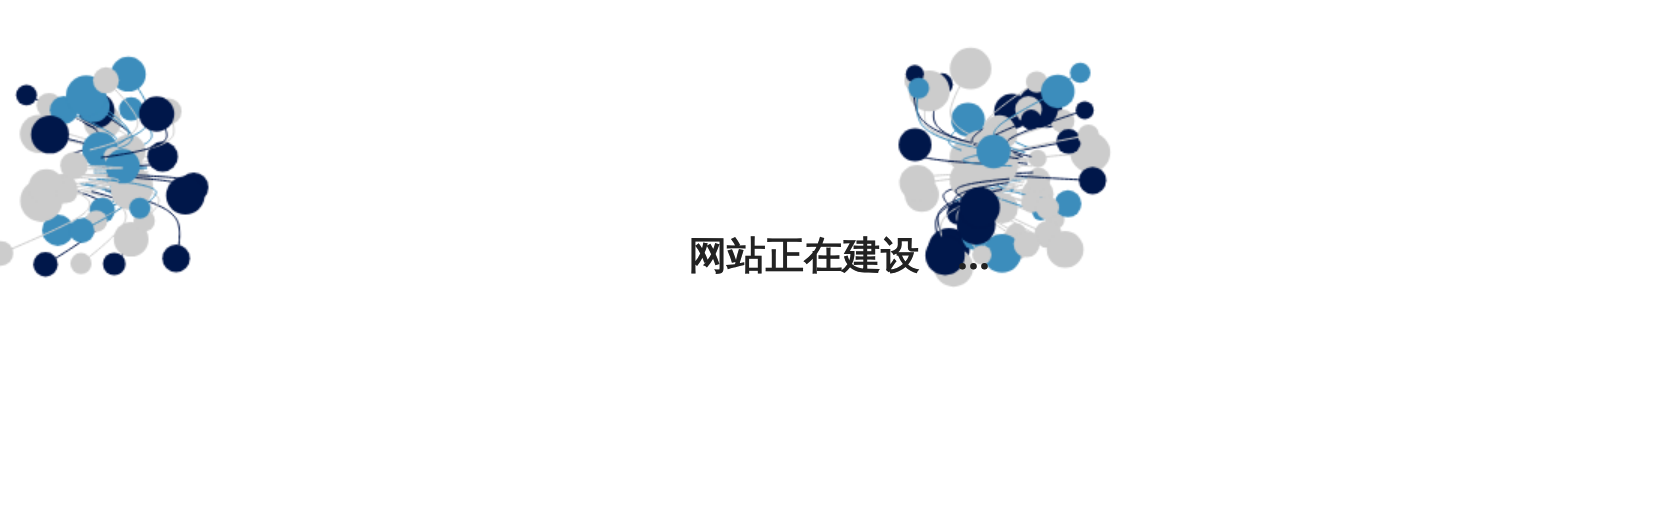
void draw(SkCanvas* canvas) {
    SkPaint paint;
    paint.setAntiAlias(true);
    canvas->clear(0xFFFFFFFF);
    canvas->drawImageRect(SkImages::DeferredFromEncodedData(SkData::MakeFromFileName("img1.png")), SkRect::MakeXYWH(0, 46, 1112, 242), SkSamplingOptions());
    SkFont font1(fontMgr->matchFamilyStyle("WenQuanYi Zen Hei", SkFontStyle::Bold()), 38.5f);
    font1.setSubpixel(true);
    paint.setColor(0xFF222222);
    canvas->drawString("网站正在建设", 688, 269, font1, paint);
    SkFont font2(fontMgr->matchFamilyStyle("Open Sans", SkFontStyle::Bold()), 38.5f);
    font2.setSubpixel(true);
    canvas->drawString("...", 957, 269, font2, paint);
}
